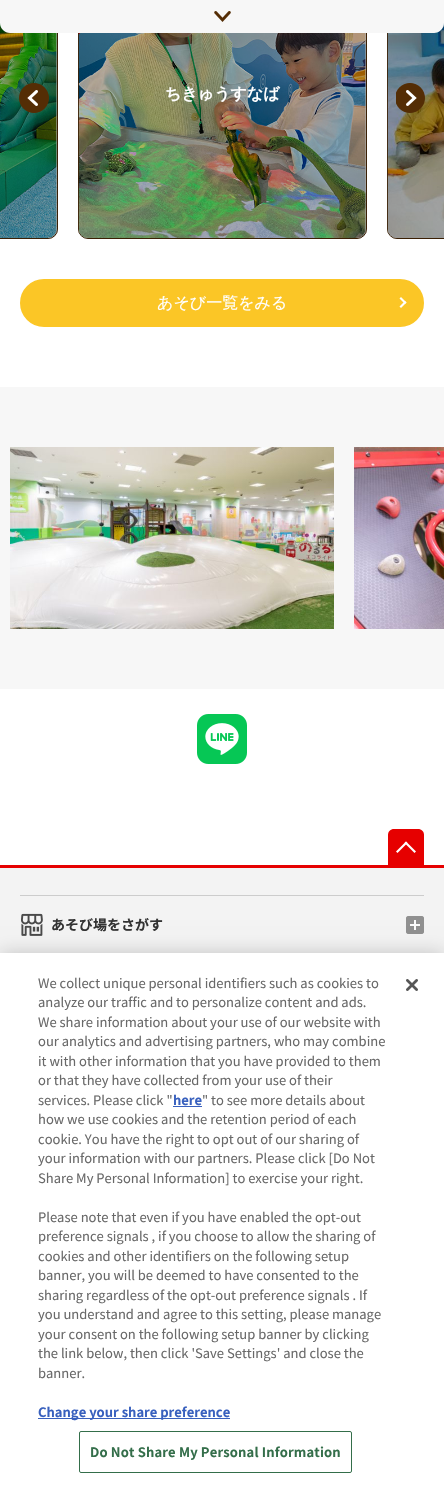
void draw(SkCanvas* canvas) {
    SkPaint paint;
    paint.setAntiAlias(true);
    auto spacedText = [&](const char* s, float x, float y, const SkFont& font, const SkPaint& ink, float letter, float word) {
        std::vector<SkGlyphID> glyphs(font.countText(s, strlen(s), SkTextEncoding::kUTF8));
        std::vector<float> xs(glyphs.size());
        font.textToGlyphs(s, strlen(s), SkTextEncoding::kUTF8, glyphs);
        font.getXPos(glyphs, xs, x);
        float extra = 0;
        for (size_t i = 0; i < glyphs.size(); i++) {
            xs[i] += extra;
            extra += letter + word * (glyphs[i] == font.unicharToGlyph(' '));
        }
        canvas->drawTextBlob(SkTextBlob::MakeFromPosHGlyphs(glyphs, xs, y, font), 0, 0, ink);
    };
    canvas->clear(0xFFFFFFFF);
    paint.setStyle(SkPaint::kStroke_Style);
    paint.setStrokeWidth(1);
    paint.setColor(0xFF542D05);
    canvas->drawRoundRect(SkRect::MakeXYWH(-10.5f, -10.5f, 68, 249), 9.5f, 9.5f, paint);
    canvas->drawImageRect(SkImages::DeferredFromEncodedData(SkData::MakeFromFileName("img3.png")), SkRect::MakeXYWH(0, 23, 57, 215), SkSamplingOptions());
    paint.setStyle(SkPaint::kFill_Style);
    paint.setColor(0x4D000000);
    canvas->drawPath(SkPathBuilder().moveTo(0, -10).lineTo(48, -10).cubicTo(53.5f, -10, 58, -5.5f, 58, 0).lineTo(58, 229).cubicTo(58, 234.5f, 53.5f, 239, 48, 239).lineTo(0, 239).close().detach(), paint);
    paint.setStyle(SkPaint::kStroke_Style);
    paint.setColor(0xFF542D05);
    canvas->drawRoundRect(SkRect::MakeXYWH(78.5f, -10.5f, 288, 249), 9.5f, 9.5f, paint);
    canvas->drawImageRect(SkImages::DeferredFromEncodedData(SkData::MakeFromFileName("img4.png")), SkRect::MakeXYWH(78, 33, 288, 205), SkSamplingOptions());
    paint.setStyle(SkPaint::kFill_Style);
    paint.setColor(0x4D000000);
    canvas->drawRoundRect(SkRect::MakeXYWH(78, -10, 289, 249), 10, 10, paint);
    paint.setStyle(SkPaint::kStroke_Style);
    paint.setColor(0xFF542D05);
    canvas->drawRoundRect(SkRect::MakeXYWH(387.5f, -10.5f, 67, 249), 9.5f, 9.5f, paint);
    canvas->drawImageRect(SkImages::DeferredFromEncodedData(SkData::MakeFromFileName("img5.png")), SkRect::MakeXYWH(387, 23, 57, 215), SkSamplingOptions());
    paint.setStyle(SkPaint::kFill_Style);
    paint.setColor(0x4D000000);
    canvas->drawPath(SkPathBuilder().moveTo(397, -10).lineTo(444, -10).lineTo(444, 239).lineTo(397, 239).cubicTo(391.5f, 239, 387, 234.5f, 387, 229).lineTo(387, 0).cubicTo(387, -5.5f, 391.5f, -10, 397, -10).close().detach(), paint);
    paint.setColor(0xFFF7F7F7);
    canvas->drawPath(SkPathBuilder().moveTo(0, 0).lineTo(444, 0).lineTo(444, 23).cubicTo(444, 28.5f, 439.5f, 33, 434, 33).lineTo(10, 33).cubicTo(4.5f, 33, 0, 28.5f, 0, 23).close().detach(), paint);
    canvas->drawImageRect(SkImages::DeferredFromEncodedData(SkData::MakeFromFileName("img1.png")), SkRect::MakeXYWH(214, 11, 17, 11), SkSamplingOptions());
    canvas->drawImageRect(SkImages::DeferredFromEncodedData(SkData::MakeFromFileName("img2.png")), SkRect::MakeXYWH(19, 83, 30, 30), SkSamplingOptions());
    SkFont font1(fontMgr->matchFamilyStyle("WenQuanYi Zen Hei", SkFontStyle::Bold()), 16);
    font1.setSubpixel(true);
    paint.setColor(0xFFFFFFFF);
    canvas->drawString("ちきゅうすなば", 165, 99, font1, paint);
    canvas->drawImageRect(SkImages::DeferredFromEncodedData(SkData::MakeFromFileName("img6.png")), SkRect::MakeXYWH(396, 83, 29, 30), SkSamplingOptions());
    paint.setColor(0xFFFBC626);
    canvas->drawRoundRect(SkRect::MakeXYWH(21, 280, 402, 46), 23, 23, paint);
    paint.setStyle(SkPaint::kStroke_Style);
    paint.setStrokeWidth(2);
    canvas->drawRoundRect(SkRect::MakeXYWH(21, 280, 402, 46), 23, 23, paint);
    SkFont font2(fontMgr->matchFamilyStyle("WenQuanYi Zen Hei", SkFontStyle(500, SkFontStyle::kNormal_Width, SkFontStyle::kUpright_Slant)), 16);
    font2.setSubpixel(true);
    paint.setStyle(SkPaint::kFill_Style);
    paint.setColor(0xFFFFFFFF);
    canvas->drawString("あそび一覧をみる", 157, 308, font2, paint);
    canvas->drawPath(SkPathBuilder().moveTo(401, 297).lineTo(406.5f, 302.5f).lineTo(405, 304).lineTo(399.5f, 298.5f).close().detach(), paint);
    canvas->drawPath(SkPathBuilder().moveTo(399.5f, 306.5f).lineTo(405, 301).lineTo(406.5f, 302.5f).lineTo(401, 308).close().detach(), paint);
    paint.setColor(0xFFF7F7F7);
    canvas->drawRect(SkRect::MakeXYWH(0, 387, 444, 302), paint);
    canvas->drawImageRect(SkImages::DeferredFromEncodedData(SkData::MakeFromFileName("img7.png")), SkRect::MakeXYWH(10, 447, 324, 182), SkSamplingOptions());
    canvas->drawImageRect(SkImages::DeferredFromEncodedData(SkData::MakeFromFileName("img8.png")), SkRect::MakeXYWH(354, 447, 90, 182), SkSamplingOptions());
    canvas->drawImageRect(SkImages::DeferredFromEncodedData(SkData::MakeFromFileName("img9.png")), SkRect::MakeXYWH(197, 714, 50, 50), SkSamplingOptions());
    paint.setColor(0xFFE60000);
    canvas->drawPath(SkPathBuilder().moveTo(394, 829).lineTo(418, 829).cubicTo(421.5f, 829, 424, 831.5f, 424, 835).lineTo(424, 865).lineTo(388, 865).lineTo(388, 835).cubicTo(388, 831.5f, 390.5f, 829, 394, 829).close().detach(), paint);
    paint.setColor(0xFFFFFFFF);
    canvas->drawPath(SkPathBuilder().moveTo(406, 841.5f).lineTo(416, 851.5f).lineTo(414.5f, 853).lineTo(404.5f, 843).close().detach(), paint);
    canvas->drawPath(SkPathBuilder().moveTo(406, 841.5f).lineTo(407.5f, 843).lineTo(397.5f, 853).lineTo(396, 851.5f).close().detach(), paint);
    paint.setColor(0xFFE60000);
    canvas->drawRect(SkRect::MakeXYWH(0, 865, 444, 3), paint);
    paint.setColor(0xFFF3F3F3);
    canvas->drawRect(SkRect::MakeXYWH(0, 868, 444, 85), paint);
    paint.setColor(0xFFCCCCCC);
    canvas->drawRect(SkRect::MakeXYWH(20, 895, 404, 1), paint);
    canvas->drawImageRect(SkImages::DeferredFromEncodedData(SkData::MakeFromFileName("img10.png")), SkRect::MakeXYWH(21, 913, 22, 23), SkSamplingOptions());
    SkFont font3(fontMgr->matchFamilyStyle("Noto Sans CJK JP", SkFontStyle::Bold()), 14);
    font3.setSubpixel(true);
    paint.setColor(0xFF333333);
    canvas->drawString("あそび場をさがす", 51, 930, font3, paint);
    paint.setColor(0xFF909090);
    canvas->drawRoundRect(SkRect::MakeXYWH(406, 916, 18, 18), 3, 3, paint);
    paint.setColor(0xFFFBFBFB);
    canvas->drawRect(SkRect::MakeXYWH(406, 924, 18, 2), paint);
    canvas->drawRect(SkRect::MakeXYWH(414, 916, 2, 18), paint);
    paint.setStyle(SkPaint::kStroke_Style);
    paint.setStrokeWidth(4);
    paint.setColor(0xFF909090);
    canvas->drawRoundRect(SkRect::MakeXYWH(408, 918, 14, 14), 1, 1, paint);
    paint.setStyle(SkPaint::kFill_Style);
    paint.setColor(0x33000000);
    paint.setMaskFilter(SkMaskFilter::MakeBlur(kNormal_SkBlurStyle, 9));
    canvas->drawRect(SkRect::MakeXYWH(0, 953, 444, 534), paint);
    paint.setMaskFilter(nullptr);
    paint.setColor(0xFFFFFFFF);
    canvas->drawRect(SkRect::MakeXYWH(0, 953, 444, 534), paint);
    SkFont font4(fontMgr->matchFamilyStyle("Noto Sans CJK JP", SkFontStyle::Normal()), 13);
    font4.setSubpixel(true);
    paint.setColor(0xFF696969);
    canvas->drawString("We collect unique personal identifiers such as cookies to", 38, 988, font4, paint);
    canvas->drawString("analyze our traffic and to personalize content and ads.", 38, 1007, font4, paint);
    canvas->drawString("We share information about your use of our website with", 38, 1027, font4, paint);
    canvas->drawString("our analytics and advertising partners, who may combine", 38, 1046, font4, paint);
    canvas->drawString("it with other information that you have provided to them", 38, 1066, font4, paint);
    canvas->drawString("or that they have collected from your use of their", 38, 1085, font4, paint);
    canvas->drawString("services. Please click \"", 38, 1105, font4, paint);
    SkFont font5(fontMgr->matchFamilyStyle("Noto Sans CJK JP", SkFontStyle::Bold()), 13);
    font5.setSubpixel(true);
    paint.setColor(0xFF3860BE);
    canvas->drawString("here", 173, 1105, font5, paint);
    canvas->drawRect(SkRect::MakeXYWH(173, 1106, 29, 1), paint);
    paint.setColor(0xFF696969);
    canvas->drawString("\" to see more details about", 202, 1105, font4, paint);
    canvas->drawString("how we use cookies and the retention period of each", 38, 1124, font4, paint);
    canvas->drawString("cookie. You have the right to opt out of our sharing of", 38, 1144, font4, paint);
    canvas->drawString("your information with our partners. Please click [Do Not", 38, 1163, font4, paint);
    canvas->drawString("Share My Personal Information] to exercise your right.", 38, 1183, font4, paint);
    canvas->drawString("Please note that even if you have enabled the opt-out", 38, 1222, font4, paint);
    canvas->drawString("preference signals , if you choose to allow the sharing of", 38, 1241, font4, paint);
    canvas->drawString("cookies and other identifiers on the following setup", 38, 1261, font4, paint);
    canvas->drawString("banner, you will be deemed to have consented to the", 38, 1280, font4, paint);
    canvas->drawString("sharing regardless of the opt-out preference signals . If", 38, 1300, font4, paint);
    canvas->drawString("you understand and agree to this setting, please manage", 38, 1319, font4, paint);
    canvas->drawString("your consent on the following setup banner by clicking", 38, 1339, font4, paint);
    canvas->drawString("the link below, then click 'Save Settings' and close the", 38, 1358, font4, paint);
    canvas->drawString("banner.", 38, 1378, font4, paint);
    paint.setColor(0xFF3860BE);
    canvas->drawRect(SkRect::MakeXYWH(38, 1418, 192, 1), paint);
    canvas->drawString("Change your share preference", 38, 1417, font5, paint);
    paint.setStyle(SkPaint::kStroke_Style);
    paint.setStrokeWidth(1);
    paint.setColor(0xFF346E4A);
    canvas->drawRoundRect(SkRect::MakeXYWH(79.5f, 1431.5f, 272, 41), 1.5f, 1.5f, paint);
    paint.setStyle(SkPaint::kFill_Style);
    spacedText("Do Not Share My Personal Information", 90, 1457, font5, paint, 0.15f, 0);
    canvas->drawImageRect(SkImages::DeferredFromEncodedData(SkData::MakeFromFileName("img11.png")), SkRect::MakeXYWH(406, 979, 12, 12), SkSamplingOptions());
}
